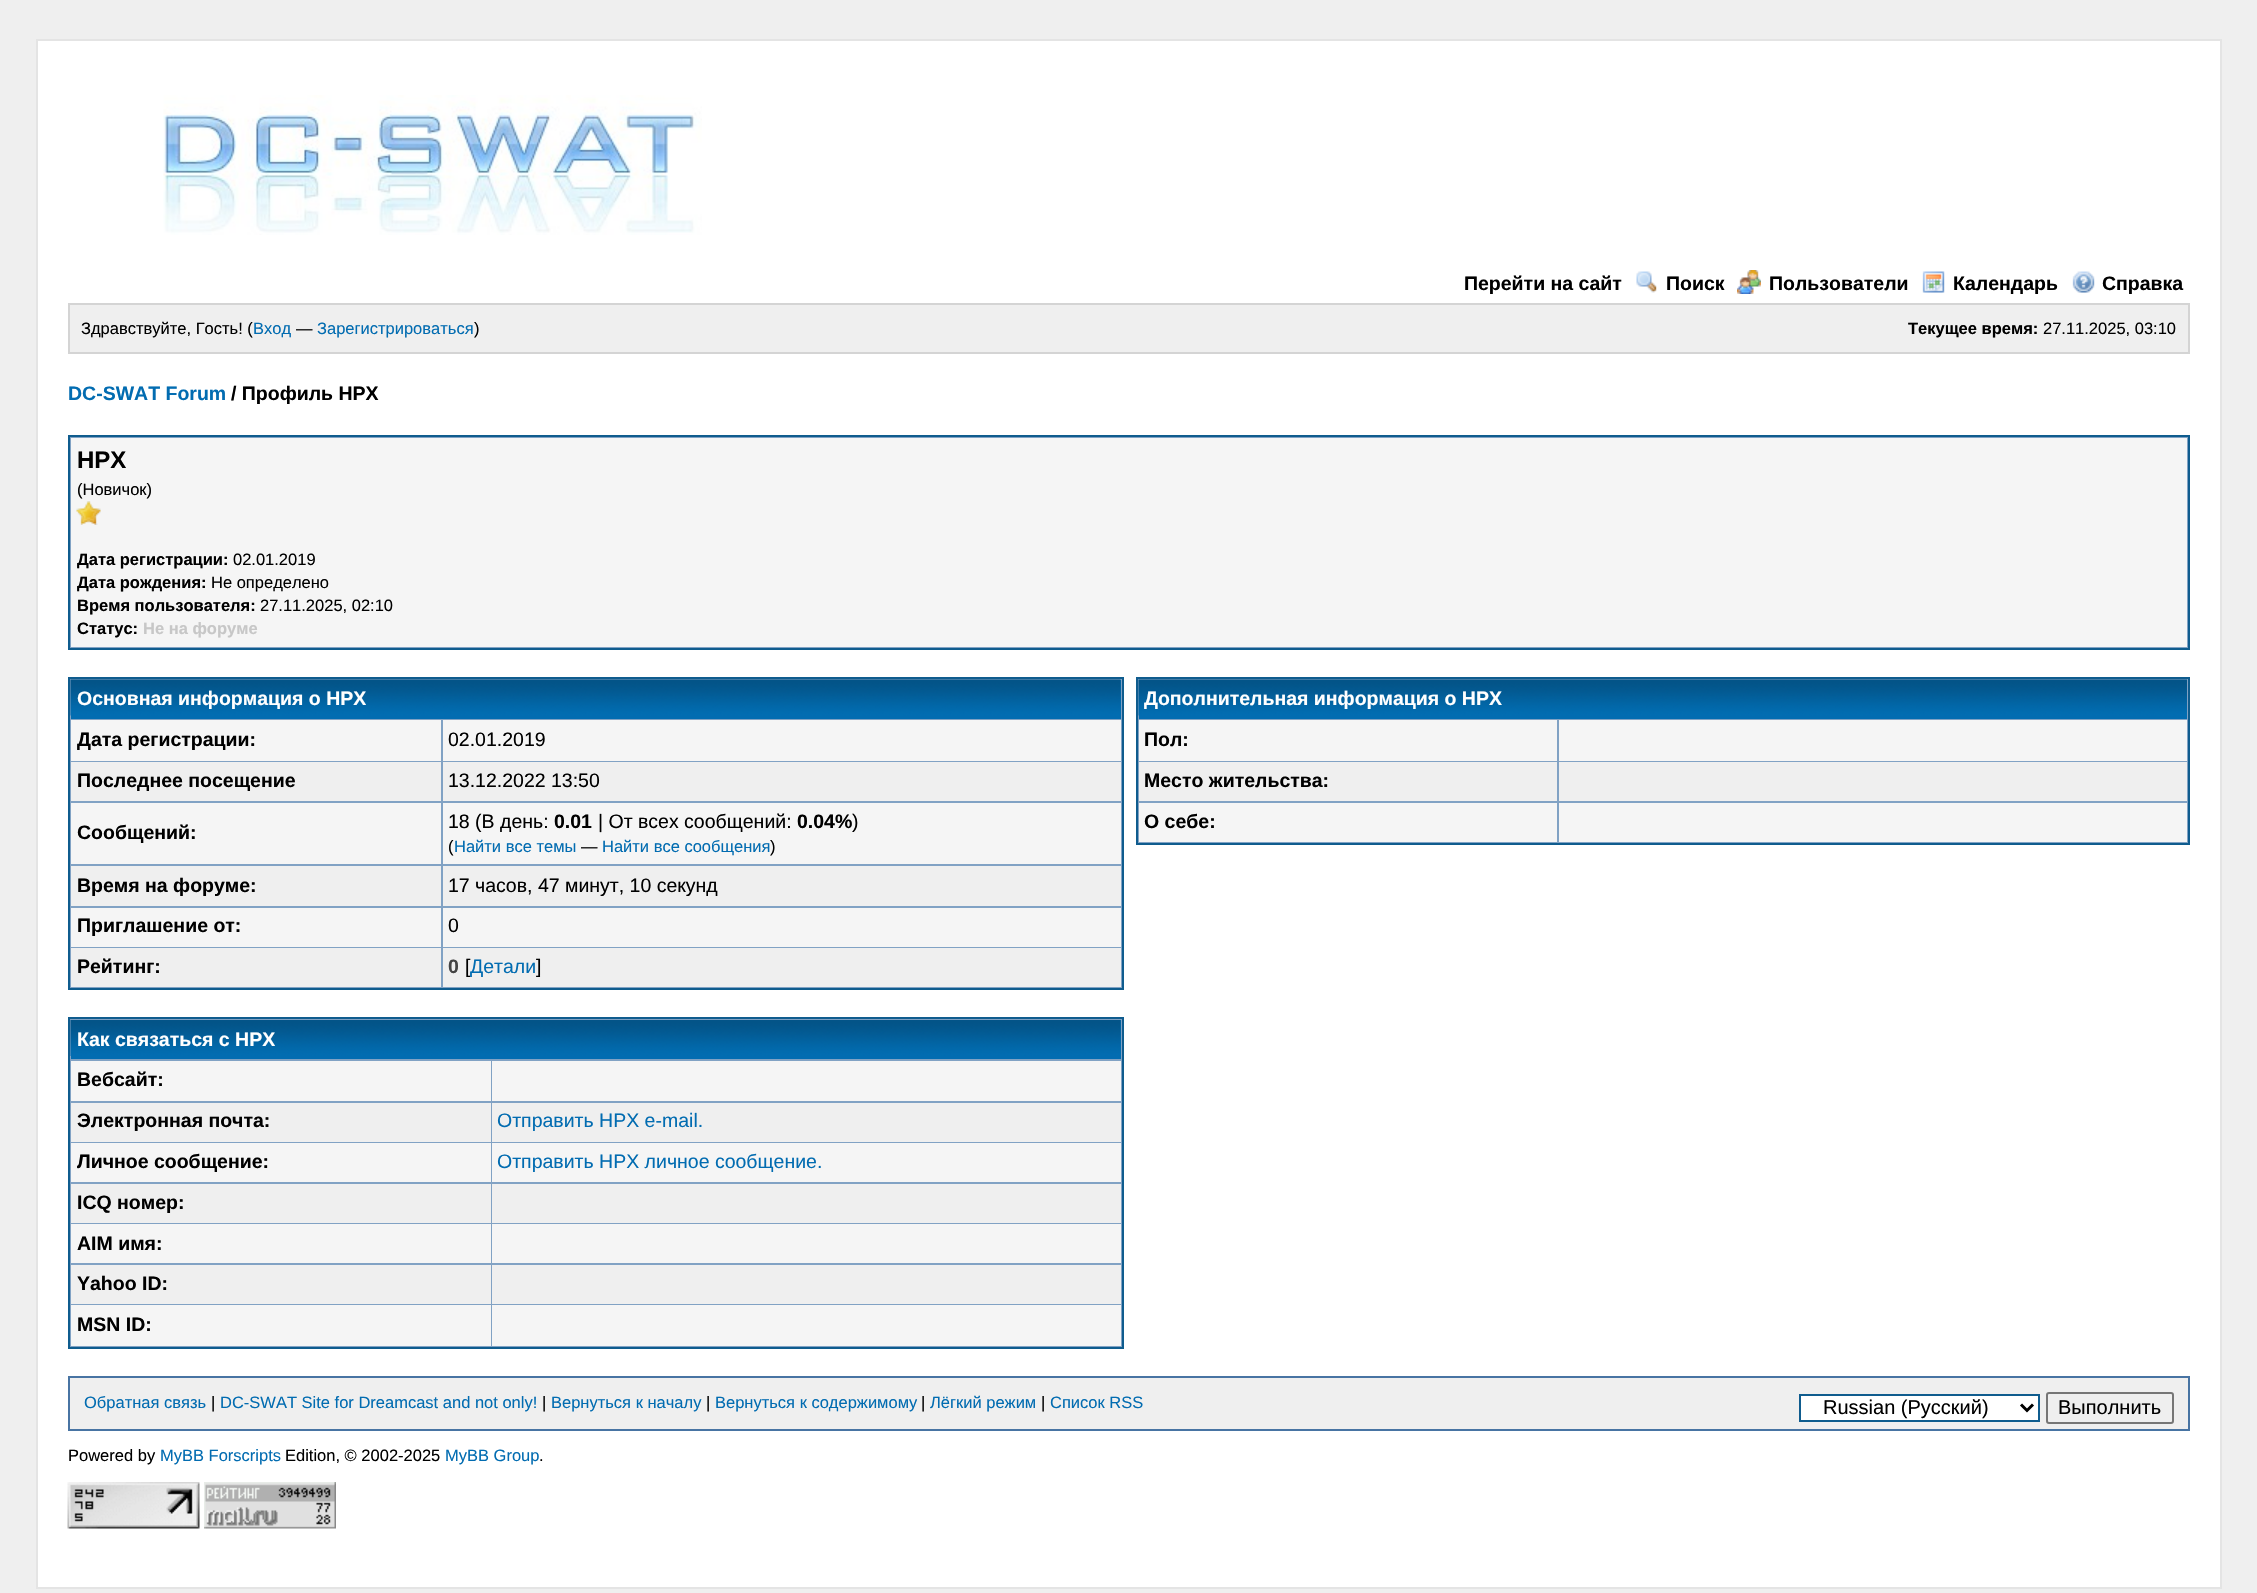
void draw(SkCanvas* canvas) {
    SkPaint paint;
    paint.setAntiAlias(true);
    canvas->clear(0xFFEFEFEF);
    paint.setColor(0xFFFFFFFF);
    canvas->drawRect(SkRect::MakeXYWH(37, 40, 2184, 1548), paint);
    paint.setStyle(SkPaint::kStroke_Style);
    paint.setStrokeWidth(2);
    paint.setColor(0xFFE4E4E4);
    canvas->drawRect(SkRect::MakeXYWH(37, 40, 2184, 1548), paint);
    canvas->drawImageRect(SkImages::DeferredFromEncodedData(SkData::MakeFromFileName("img1.png")), SkRect::MakeXYWH(163, 95, 539, 140), SkSamplingOptions());
    SkFont font1(fontMgr->matchFamilyStyle("Liberation Sans", SkFontStyle::Bold()), 19.5f);
    font1.setSubpixel(true);
    paint.setStyle(SkPaint::kFill_Style);
    paint.setColor(0xFF000000);
    canvas->drawString("Перейти на сайт", 1464, 290, font1, paint);
    canvas->drawImageRect(SkImages::DeferredFromEncodedData(SkData::MakeFromFileName("img2.png")), SkRect::MakeXYWH(1636, 271, 21, 22), SkSamplingOptions());
    canvas->drawString("Поиск", 1666, 290, font1, paint);
    canvas->drawImageRect(SkImages::DeferredFromEncodedData(SkData::MakeFromFileName("img3.png")), SkRect::MakeXYWH(1737, 270, 24, 24), SkSamplingOptions());
    canvas->drawString("Пользователи", 1769, 290, font1, paint);
    canvas->drawImageRect(SkImages::DeferredFromEncodedData(SkData::MakeFromFileName("img4.png")), SkRect::MakeXYWH(1922, 271, 23, 22), SkSamplingOptions());
    canvas->drawString("Календарь", 1953, 290, font1, paint);
    canvas->drawImageRect(SkImages::DeferredFromEncodedData(SkData::MakeFromFileName("img5.png")), SkRect::MakeXYWH(2072, 271, 23, 22), SkSamplingOptions());
    canvas->drawString("Справка", 2102, 290, font1, paint);
    paint.setColor(0xFFEFEFEF);
    canvas->drawRect(SkRect::MakeXYWH(69, 304, 2120, 49), paint);
    paint.setStyle(SkPaint::kStroke_Style);
    paint.setColor(0xFFD4D4D4);
    canvas->drawRect(SkRect::MakeXYWH(69, 304, 2120, 49), paint);
    SkFont font2(fontMgr->matchFamilyStyle("Liberation Sans", SkFontStyle::Normal()), 16.5f);
    font2.setSubpixel(true);
    paint.setStyle(SkPaint::kFill_Style);
    paint.setColor(0xFF000000);
    canvas->drawString("Здравствуйте, Гость! (", 81, 334, font2, paint);
    paint.setColor(0xFF026CB1);
    canvas->drawString("Вход", 253, 334, font2, paint);
    paint.setColor(0xFF000000);
    canvas->drawString("—", 296, 334, font2, paint);
    paint.setColor(0xFF026CB1);
    canvas->drawString("Зарегистрироваться", 317, 334, font2, paint);
    paint.setColor(0xFF000000);
    canvas->drawString(")", 474, 334, font2, paint);
    SkFont font3(fontMgr->matchFamilyStyle("Liberation Sans", SkFontStyle::Bold()), 16.5f);
    font3.setSubpixel(true);
    canvas->drawString("Текущее время:", 1908, 334, font3, paint);
    canvas->drawString("27.11.2025, 03:10", 2043, 334, font2, paint);
    paint.setColor(0xFF026CB1);
    canvas->drawString("DC-SWAT Forum", 68, 400, font1, paint);
    paint.setColor(0xFF000000);
    canvas->drawString("/ Профиль HPX", 231, 400, font1, paint);
    paint.setColor(0xFF81A2C4);
    canvas->drawRect(SkRect::MakeXYWH(69, 436, 2120, 213), paint);
    paint.setStyle(SkPaint::kStroke_Style);
    paint.setColor(0xFF0F5C8E);
    canvas->drawRect(SkRect::MakeXYWH(69, 436, 2120, 213), paint);
    paint.setStyle(SkPaint::kFill_Style);
    paint.setColor(0xFFF5F5F5);
    canvas->drawRect(SkRect::MakeXYWH(71, 438, 2116, 209), paint);
    SkFont font4(fontMgr->matchFamilyStyle("Liberation Sans", SkFontStyle::Bold()), 24);
    font4.setSubpixel(true);
    paint.setColor(0xFF000000);
    canvas->drawString("HPX", 77, 468, font4, paint);
    canvas->drawString("(Новичок)", 77, 495, font2, paint);
    canvas->drawImageRect(SkImages::DeferredFromEncodedData(SkData::MakeFromFileName("img6.png")), SkRect::MakeXYWH(76, 501, 25, 24), SkSamplingOptions());
    canvas->drawString("Дата регистрации:", 77, 565, font3, paint);
    canvas->drawString("02.01.2019", 233, 565, font2, paint);
    canvas->drawString("Дата рождения:", 77, 588, font3, paint);
    canvas->drawString("Не определено", 211, 588, font2, paint);
    canvas->drawString("Время пользователя:", 77, 611, font3, paint);
    canvas->drawString("27.11.2025, 02:10", 260, 611, font2, paint);
    canvas->drawString("Статус:", 77, 634, font3, paint);
    paint.setColor(0xFFC7C7C7);
    canvas->drawString("Не на форуме", 143, 634, font3, paint);
    paint.setColor(0xFF81A2C4);
    canvas->drawRect(SkRect::MakeXYWH(69, 678, 1054, 311), paint);
    paint.setStyle(SkPaint::kStroke_Style);
    paint.setColor(0xFF0F5C8E);
    canvas->drawRect(SkRect::MakeXYWH(69, 678, 1054, 311), paint);
    paint.setStyle(SkPaint::kFill_Style);
    paint.setColor(0xFF026CB1);
    canvas->drawRect(SkRect::MakeXYWH(71, 680, 1050, 39), paint);
    canvas->drawImageRect(SkImages::DeferredFromEncodedData(SkData::MakeFromFileName("img7.png")), SkRect::MakeXYWH(70, 679, 1051, 37), SkSamplingOptions());
    paint.setColor(0xFFFFFFFF);
    canvas->drawString("Основная информация о HPX", 77, 705, font1, paint);
    paint.setColor(0xFFF5F5F5);
    canvas->drawRect(SkRect::MakeXYWH(71, 720, 370, 41), paint);
    paint.setColor(0xFF000000);
    canvas->drawString("Дата регистрации:", 77, 746, font1, paint);
    paint.setColor(0xFFF5F5F5);
    canvas->drawRect(SkRect::MakeXYWH(443, 720, 678, 41), paint);
    SkFont font5(fontMgr->matchFamilyStyle("Liberation Sans", SkFontStyle::Normal()), 19.5f);
    font5.setSubpixel(true);
    paint.setColor(0xFF000000);
    canvas->drawString("02.01.2019", 448, 746, font5, paint);
    paint.setColor(0xFFEFEFEF);
    canvas->drawRect(SkRect::MakeXYWH(71, 762, 370, 39), paint);
    paint.setColor(0xFF000000);
    canvas->drawString("Последнее посещение", 77, 787, font1, paint);
    paint.setColor(0xFFEFEFEF);
    canvas->drawRect(SkRect::MakeXYWH(443, 762, 678, 39), paint);
    paint.setColor(0xFF000000);
    canvas->drawString("13.12.2022 13:50", 448, 787, font5, paint);
    paint.setColor(0xFFF5F5F5);
    canvas->drawRect(SkRect::MakeXYWH(71, 803, 370, 61), paint);
    paint.setColor(0xFF000000);
    canvas->drawString("Сообщений:", 77, 839, font1, paint);
    paint.setColor(0xFFF5F5F5);
    canvas->drawRect(SkRect::MakeXYWH(443, 803, 678, 61), paint);
    paint.setColor(0xFF000000);
    canvas->drawString("18 (В день:", 448, 828, font5, paint);
    canvas->drawString("0.01", 554, 828, font1, paint);
    canvas->drawString("| От всех сообщений:", 598, 828, font5, paint);
    canvas->drawString("0.04%", 797, 828, font1, paint);
    canvas->drawString(")", 852, 828, font5, paint);
    canvas->drawString("(", 448, 852, font2, paint);
    paint.setColor(0xFF026CB1);
    canvas->drawString("Найти все темы", 454, 852, font2, paint);
    paint.setColor(0xFF000000);
    canvas->drawString("—", 581, 852, font2, paint);
    paint.setColor(0xFF026CB1);
    canvas->drawString("Найти все сообщения", 602, 852, font2, paint);
    paint.setColor(0xFF000000);
    canvas->drawString(")", 770, 852, font2, paint);
    paint.setColor(0xFFEFEFEF);
    canvas->drawRect(SkRect::MakeXYWH(71, 866, 370, 40), paint);
    paint.setColor(0xFF000000);
    canvas->drawString("Время на форуме:", 77, 892, font1, paint);
    paint.setColor(0xFFEFEFEF);
    canvas->drawRect(SkRect::MakeXYWH(443, 866, 678, 40), paint);
    paint.setColor(0xFF000000);
    canvas->drawString("17 часов, 47 минут, 10 секунд", 448, 892, font5, paint);
    paint.setColor(0xFFF5F5F5);
    canvas->drawRect(SkRect::MakeXYWH(71, 908, 370, 39), paint);
    paint.setColor(0xFF000000);
    canvas->drawString("Приглашение от:", 77, 932, font1, paint);
    paint.setColor(0xFFF5F5F5);
    canvas->drawRect(SkRect::MakeXYWH(443, 908, 678, 39), paint);
    paint.setColor(0xFF000000);
    canvas->drawString("0", 448, 932, font5, paint);
    paint.setColor(0xFFEFEFEF);
    canvas->drawRect(SkRect::MakeXYWH(71, 948, 370, 39), paint);
    paint.setColor(0xFF000000);
    canvas->drawString("Рейтинг:", 77, 973, font1, paint);
    paint.setColor(0xFFEFEFEF);
    canvas->drawRect(SkRect::MakeXYWH(443, 948, 678, 39), paint);
    paint.setColor(0xFF444444);
    canvas->drawString("0", 448, 973, font1, paint);
    paint.setColor(0xFF000000);
    canvas->drawString("[", 465, 973, font5, paint);
    paint.setColor(0xFF026CB1);
    canvas->drawString("Детали", 470, 973, font5, paint);
    paint.setColor(0xFF000000);
    canvas->drawString("]", 536, 973, font5, paint);
    paint.setColor(0xFF81A2C4);
    canvas->drawRect(SkRect::MakeXYWH(69, 1018, 1054, 330), paint);
    paint.setStyle(SkPaint::kStroke_Style);
    paint.setColor(0xFF0F5C8E);
    canvas->drawRect(SkRect::MakeXYWH(69, 1018, 1054, 330), paint);
    paint.setStyle(SkPaint::kFill_Style);
    paint.setColor(0xFF026CB1);
    canvas->drawRect(SkRect::MakeXYWH(71, 1020, 1050, 39), paint);
    canvas->drawImageRect(SkImages::DeferredFromEncodedData(SkData::MakeFromFileName("img8.png")), SkRect::MakeXYWH(70, 1020, 1051, 36), SkSamplingOptions());
    paint.setColor(0xFFFFFFFF);
    canvas->drawString("Как связаться с HPX", 77, 1046, font1, paint);
    paint.setColor(0xFFF5F5F5);
    canvas->drawRect(SkRect::MakeXYWH(71, 1061, 420, 40), paint);
    paint.setColor(0xFF000000);
    canvas->drawString("Вебсайт:", 77, 1086, font1, paint);
    paint.setColor(0xFFF5F5F5);
    canvas->drawRect(SkRect::MakeXYWH(492, 1061, 629, 40), paint);
    paint.setColor(0xFFEFEFEF);
    canvas->drawRect(SkRect::MakeXYWH(71, 1103, 420, 39), paint);
    paint.setColor(0xFF000000);
    canvas->drawString("Электронная почта:", 77, 1127, font1, paint);
    paint.setColor(0xFFEFEFEF);
    canvas->drawRect(SkRect::MakeXYWH(492, 1103, 629, 39), paint);
    paint.setColor(0xFF026CB1);
    canvas->drawString("Отправить HPX e-mail.", 497, 1127, font5, paint);
    paint.setColor(0xFFF5F5F5);
    canvas->drawRect(SkRect::MakeXYWH(71, 1143, 420, 39), paint);
    paint.setColor(0xFF000000);
    canvas->drawString("Личное сообщение:", 77, 1168, font1, paint);
    paint.setColor(0xFFF5F5F5);
    canvas->drawRect(SkRect::MakeXYWH(492, 1143, 629, 39), paint);
    paint.setColor(0xFF026CB1);
    canvas->drawString("Отправить HPX личное сообщение.", 497, 1168, font5, paint);
    paint.setColor(0xFFEFEFEF);
    canvas->drawRect(SkRect::MakeXYWH(71, 1184, 420, 39), paint);
    paint.setColor(0xFF000000);
    canvas->drawString("ICQ номер:", 77, 1209, font1, paint);
    paint.setColor(0xFFEFEFEF);
    canvas->drawRect(SkRect::MakeXYWH(492, 1184, 629, 39), paint);
    paint.setColor(0xFFF5F5F5);
    canvas->drawRect(SkRect::MakeXYWH(71, 1224, 420, 39), paint);
    paint.setColor(0xFF000000);
    canvas->drawString("AIM имя:", 77, 1250, font1, paint);
    paint.setColor(0xFFF5F5F5);
    canvas->drawRect(SkRect::MakeXYWH(492, 1224, 629, 39), paint);
    paint.setColor(0xFFEFEFEF);
    canvas->drawRect(SkRect::MakeXYWH(71, 1265, 420, 39), paint);
    paint.setColor(0xFF000000);
    canvas->drawString("Yahoo ID:", 77, 1290, font1, paint);
    paint.setColor(0xFFEFEFEF);
    canvas->drawRect(SkRect::MakeXYWH(492, 1265, 629, 39), paint);
    paint.setColor(0xFFF5F5F5);
    canvas->drawRect(SkRect::MakeXYWH(71, 1305, 420, 41), paint);
    paint.setColor(0xFF000000);
    canvas->drawString("MSN ID:", 77, 1331, font1, paint);
    paint.setColor(0xFFF5F5F5);
    canvas->drawRect(SkRect::MakeXYWH(492, 1305, 629, 41), paint);
    paint.setColor(0xFF81A2C4);
    canvas->drawRect(SkRect::MakeXYWH(1137, 678, 1052, 166), paint);
    paint.setStyle(SkPaint::kStroke_Style);
    paint.setColor(0xFF0F5C8E);
    canvas->drawRect(SkRect::MakeXYWH(1137, 678, 1052, 166), paint);
    paint.setStyle(SkPaint::kFill_Style);
    paint.setColor(0xFF026CB1);
    canvas->drawRect(SkRect::MakeXYWH(1139, 715, 1048, 4), paint);
    canvas->drawImageRect(SkImages::DeferredFromEncodedData(SkData::MakeFromFileName("img9.png")), SkRect::MakeXYWH(1138, 679, 1049, 37), SkSamplingOptions());
    paint.setColor(0xFFFFFFFF);
    canvas->drawString("Дополнительная информация о HPX", 1144, 705, font1, paint);
    paint.setColor(0xFFF5F5F5);
    canvas->drawRect(SkRect::MakeXYWH(1139, 720, 418, 41), paint);
    paint.setColor(0xFF000000);
    canvas->drawString("Пол:", 1144, 746, font1, paint);
    paint.setColor(0xFFF5F5F5);
    canvas->drawRect(SkRect::MakeXYWH(1559, 720, 628, 41), paint);
    paint.setColor(0xFFEFEFEF);
    canvas->drawRect(SkRect::MakeXYWH(1139, 762, 418, 39), paint);
    paint.setColor(0xFF000000);
    canvas->drawString("Место жительства:", 1144, 787, font1, paint);
    paint.setColor(0xFFEFEFEF);
    canvas->drawRect(SkRect::MakeXYWH(1559, 762, 628, 39), paint);
    paint.setColor(0xFFF5F5F5);
    canvas->drawRect(SkRect::MakeXYWH(1139, 803, 418, 39), paint);
    paint.setColor(0xFF000000);
    canvas->drawString("О себе:", 1144, 828, font1, paint);
    paint.setColor(0xFFF5F5F5);
    canvas->drawRect(SkRect::MakeXYWH(1559, 803, 628, 39), paint);
    paint.setColor(0xFFEFEFEF);
    canvas->drawRect(SkRect::MakeXYWH(69, 1377, 2120, 53), paint);
    paint.setStyle(SkPaint::kStroke_Style);
    paint.setColor(0xFF4874A3);
    canvas->drawRect(SkRect::MakeXYWH(69, 1377, 2120, 53), paint);
    paint.setStyle(SkPaint::kFill_Style);
    paint.setColor(0xFF026CB1);
    canvas->drawString("Обратная связь", 84, 1408, font2, paint);
    paint.setColor(0xFF000000);
    canvas->drawString("|", 211, 1408, font2, paint);
    paint.setColor(0xFF026CB1);
    canvas->drawString("DC-SWAT Site for Dreamcast and not only!", 220, 1408, font2, paint);
    paint.setColor(0xFF000000);
    canvas->drawString("|", 542, 1408, font2, paint);
    paint.setColor(0xFF026CB1);
    canvas->drawString("Вернуться к началу", 551, 1408, font2, paint);
    paint.setColor(0xFF000000);
    canvas->drawString("|", 706, 1408, font2, paint);
    paint.setColor(0xFF026CB1);
    canvas->drawString("Вернуться к содержимому", 715, 1408, font2, paint);
    paint.setColor(0xFF000000);
    canvas->drawString("|", 921, 1408, font2, paint);
    paint.setColor(0xFF026CB1);
    canvas->drawString("Лёгкий режим", 930, 1408, font2, paint);
    paint.setColor(0xFF000000);
    canvas->drawString("|", 1041, 1408, font2, paint);
    paint.setColor(0xFF026CB1);
    canvas->drawString("Список RSS", 1050, 1408, font2, paint);
    paint.setColor(0xFFFFFFFF);
    canvas->drawRect(SkRect::MakeXYWH(1800, 1395, 239, 26), paint);
    paint.setStyle(SkPaint::kStroke_Style);
    paint.setColor(0xFF0F5C8E);
    canvas->drawRect(SkRect::MakeXYWH(1800, 1395, 239, 26), paint);
    paint.setStrokeWidth(3);
    paint.setColor(0xFF000000);
    canvas->drawPath(SkPathBuilder().moveTo(2021, 1404.5f).lineTo(2027, 1410.5f).lineTo(2033, 1404.5f).detach(), paint);
    SkFont font6(fontMgr->matchFamilyStyle("Liberation Sans", SkFontStyle::Normal()), 20);
    font6.setSubpixel(true);
    paint.setStyle(SkPaint::kFill_Style);
    canvas->drawString("Russian (Русский)", 1823, 1414, font6, paint);
    paint.setStyle(SkPaint::kStroke_Style);
    paint.setStrokeWidth(2);
    paint.setColor(0xFF767676);
    canvas->drawRoundRect(SkRect::MakeXYWH(2047, 1393, 126, 30), 2, 2, paint);
    paint.setStyle(SkPaint::kFill_Style);
    paint.setColor(0xFF000000);
    canvas->drawString("Выполнить", 2058, 1414, font6, paint);
    canvas->drawString("Powered by", 68, 1461, font2, paint);
    paint.setColor(0xFF026CB1);
    canvas->drawString("MyBB Forscripts", 160, 1461, font2, paint);
    paint.setColor(0xFF000000);
    canvas->drawString("Edition, © 2002-2025", 285, 1461, font2, paint);
    paint.setColor(0xFF026CB1);
    canvas->drawString("MyBB Group", 445, 1461, font2, paint);
    paint.setColor(0xFF000000);
    canvas->drawString(".", 539, 1461, font2, paint);
    canvas->drawImageRect(SkImages::DeferredFromEncodedData(SkData::MakeFromFileName("img10.png")), SkRect::MakeXYWH(67, 1482, 133, 47), SkSamplingOptions());
    canvas->drawImageRect(SkImages::DeferredFromEncodedData(SkData::MakeFromFileName("img11.png")), SkRect::MakeXYWH(204, 1482, 132, 47), SkSamplingOptions());
}
